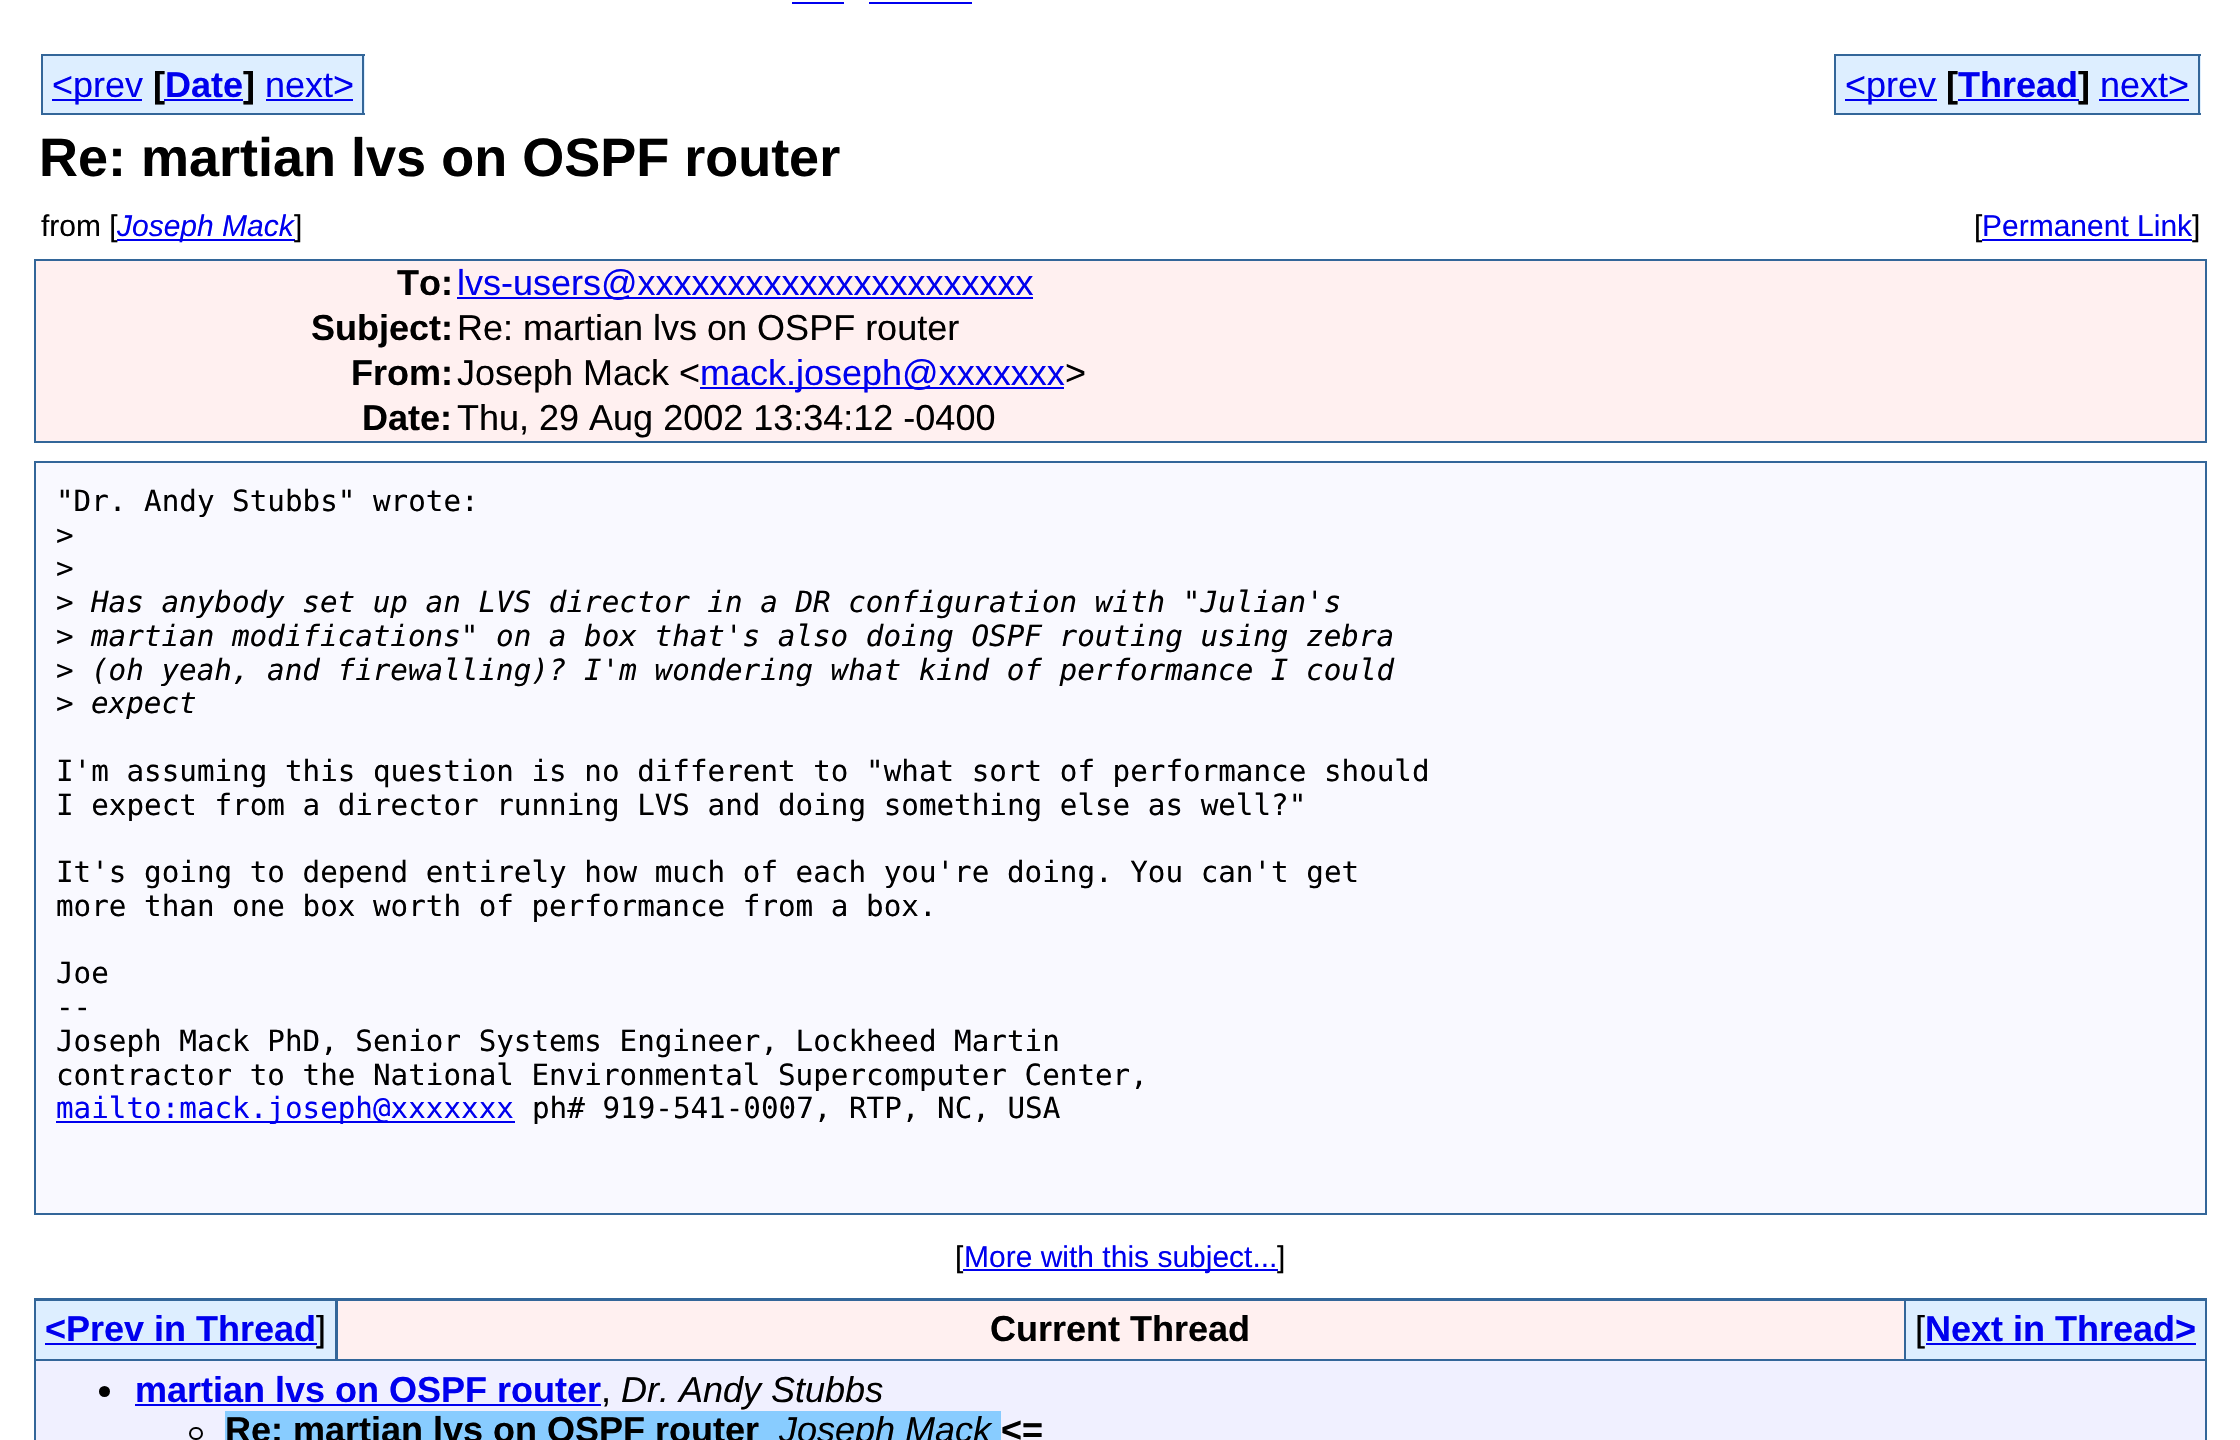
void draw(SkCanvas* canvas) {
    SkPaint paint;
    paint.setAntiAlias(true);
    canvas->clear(0xFFFFFFFF);
    paint.setColor(0xFF0000EE);
    canvas->drawRect(SkRect::MakeXYWH(792, 2, 52, 2), paint);
    canvas->drawRect(SkRect::MakeXYWH(869, 2, 103, 2), paint);
    paint.setColor(0xFFDDEEFF);
    canvas->drawRect(SkRect::MakeXYWH(43, 56, 322, 57), paint);
    paint.setColor(0xFF0000EE);
    canvas->drawRect(SkRect::MakeXYWH(52, 99, 90, 2), paint);
    SkFont font1(fontMgr->matchFamilyStyle("Liberation Sans", SkFontStyle::Normal()), 36);
    font1.setSubpixel(true);
    canvas->drawString("<prev", 52, 97, font1, paint);
    paint.setColor(0xFF336699);
    canvas->drawRect(SkRect::MakeXYWH(41, 113, 225, 2), paint);
    canvas->drawRect(SkRect::MakeXYWH(41, 54, 324, 2), paint);
    canvas->drawRect(SkRect::MakeXYWH(41, 54, 2, 61), paint);
    SkFont font2(fontMgr->matchFamilyStyle("Liberation Sans", SkFontStyle::Bold()), 36);
    font2.setSubpixel(true);
    paint.setColor(0xFF000000);
    canvas->drawString("[", 153, 97, font2, paint);
    paint.setColor(0xFF0000EE);
    canvas->drawRect(SkRect::MakeXYWH(164, 99, 79, 2), paint);
    canvas->drawString("Date", 165, 97, font2, paint);
    paint.setColor(0xFF000000);
    canvas->drawString("]", 243, 97, font2, paint);
    paint.setColor(0xFF0000EE);
    canvas->drawString("next>", 265, 97, font1, paint);
    paint.setColor(0xFF336699);
    canvas->drawRect(SkRect::MakeXYWH(362, 54, 2, 61), paint);
    canvas->drawRect(SkRect::MakeXYWH(266, 113, 99, 2), paint);
    paint.setColor(0xFF0000EE);
    canvas->drawRect(SkRect::MakeXYWH(266, 99, 87, 2), paint);
    paint.setColor(0xFFDDEEFF);
    canvas->drawRect(SkRect::MakeXYWH(1836, 56, 365, 57), paint);
    paint.setColor(0xFF0000EE);
    canvas->drawRect(SkRect::MakeXYWH(1845, 99, 92, 2), paint);
    canvas->drawString("<prev", 1845, 97, font1, paint);
    paint.setColor(0xFF336699);
    canvas->drawRect(SkRect::MakeXYWH(1834, 113, 265, 2), paint);
    canvas->drawRect(SkRect::MakeXYWH(1834, 54, 367, 2), paint);
    canvas->drawRect(SkRect::MakeXYWH(1834, 54, 2, 61), paint);
    paint.setColor(0xFF000000);
    canvas->drawString("[", 1946, 97, font2, paint);
    paint.setColor(0xFF0000EE);
    canvas->drawRect(SkRect::MakeXYWH(1958, 99, 121, 2), paint);
    canvas->drawString("Thread", 1958, 97, font2, paint);
    paint.setColor(0xFF000000);
    canvas->drawString("]", 2078, 97, font2, paint);
    paint.setColor(0xFF0000EE);
    canvas->drawString("next>", 2100, 97, font1, paint);
    paint.setColor(0xFF336699);
    canvas->drawRect(SkRect::MakeXYWH(2198, 54, 2, 61), paint);
    canvas->drawRect(SkRect::MakeXYWH(2099, 113, 102, 2), paint);
    paint.setColor(0xFF0000EE);
    canvas->drawRect(SkRect::MakeXYWH(2099, 99, 90, 2), paint);
    SkFont font3(fontMgr->matchFamilyStyle("Liberation Sans", SkFontStyle::Bold()), 54);
    font3.setSubpixel(true);
    paint.setColor(0xFF000000);
    canvas->drawString("Re: martian lvs on OSPF router", 39, 176, font3, paint);
    SkFont font4(fontMgr->matchFamilyStyle("Liberation Sans", SkFontStyle::Normal()), 30);
    font4.setSubpixel(true);
    canvas->drawString("from [", 41, 236, font4, paint);
    paint.setColor(0xFF0000EE);
    canvas->drawRect(SkRect::MakeXYWH(117, 239, 178, 2), paint);
    SkFont font5(fontMgr->matchFamilyStyle("Liberation Sans", SkFontStyle::Italic()), 30);
    font5.setSubpixel(true);
    canvas->drawString("Joseph Mack", 117, 236, font5, paint);
    paint.setColor(0xFF000000);
    canvas->drawString("]", 294, 236, font4, paint);
    canvas->drawString("[", 1974, 236, font4, paint);
    paint.setColor(0xFF0000EE);
    canvas->drawRect(SkRect::MakeXYWH(1982, 239, 210, 2), paint);
    canvas->drawString("Permanent Link", 1982, 236, font4, paint);
    paint.setColor(0xFF000000);
    canvas->drawString("]", 2192, 236, font4, paint);
    paint.setColor(0xFFFFF0F0);
    canvas->drawRect(SkRect::MakeXYWH(35, 260, 2171, 182), paint);
    paint.setStyle(SkPaint::kStroke_Style);
    paint.setStrokeWidth(2);
    paint.setColor(0xFF336699);
    canvas->drawRect(SkRect::MakeXYWH(35, 260, 2171, 182), paint);
    paint.setStyle(SkPaint::kFill_Style);
    paint.setColor(0xFF000000);
    canvas->drawString("To:", 397, 295, font2, paint);
    paint.setColor(0xFF0000EE);
    canvas->drawRect(SkRect::MakeXYWH(457, 297, 576, 2), paint);
    canvas->drawString("lvs-users@xxxxxxxxxxxxxxxxxxxxxx", 457, 295, font1, paint);
    paint.setColor(0xFF000000);
    canvas->drawString("Subject:", 311, 340, font2, paint);
    canvas->drawString("Re: martian lvs on OSPF router", 457, 340, font1, paint);
    canvas->drawString("From:", 351, 385, font2, paint);
    canvas->drawString("Joseph Mack <", 457, 385, font1, paint);
    paint.setColor(0xFF0000EE);
    canvas->drawRect(SkRect::MakeXYWH(700, 387, 364, 2), paint);
    canvas->drawString("mack.joseph@xxxxxxx", 700, 385, font1, paint);
    paint.setColor(0xFF000000);
    canvas->drawString(">", 1065, 385, font1, paint);
    canvas->drawString("Date:", 362, 430, font2, paint);
    canvas->drawString("Thu, 29 Aug 2002 13:34:12 -0400", 457, 430, font1, paint);
    paint.setColor(0xFFF9F9FF);
    canvas->drawRect(SkRect::MakeXYWH(35, 462, 2171, 752), paint);
    paint.setStyle(SkPaint::kStroke_Style);
    paint.setColor(0xFF336699);
    canvas->drawRect(SkRect::MakeXYWH(35, 462, 2171, 752), paint);
    SkFont font6(fontMgr->matchFamilyStyle("DejaVu Sans Mono", SkFontStyle::Normal()), 29.25f);
    font6.setSubpixel(true);
    paint.setStyle(SkPaint::kFill_Style);
    paint.setColor(0xFF000000);
    canvas->drawString("\"Dr. Andy Stubbs\" wrote:", 56, 511, font6, paint);
    canvas->drawString(">", 56, 545, font6, paint);
    canvas->drawString(">", 56, 578, font6, paint);
    canvas->drawString(">", 56, 612, font6, paint);
    SkFont font7(fontMgr->matchFamilyStyle("DejaVu Sans Mono", SkFontStyle::Italic()), 29.25f);
    font7.setSubpixel(true);
    canvas->drawString("Has anybody set up an LVS director in a DR configuration with \"Julian's", 91, 612, font7, paint);
    canvas->drawString(">", 56, 646, font6, paint);
    canvas->drawString("martian modifications\" on a box that's also doing OSPF routing using zebra", 91, 646, font7, paint);
    canvas->drawString(">", 56, 680, font6, paint);
    canvas->drawString("(oh yeah, and firewalling)? I'm wondering what kind of performance I could", 91, 680, font7, paint);
    canvas->drawString(">", 56, 713, font6, paint);
    canvas->drawString("expect", 91, 713, font7, paint);
    canvas->drawString("I'm assuming this question is no different to \"what sort of performance should", 56, 781, font6, paint);
    canvas->drawString("I expect from a director running LVS and doing something else as well?\"", 56, 815, font6, paint);
    canvas->drawString("It's going to depend entirely how much of each you're doing. You can't get", 56, 882, font6, paint);
    canvas->drawString("more than one box worth of performance from a box.", 56, 916, font6, paint);
    canvas->drawString("Joe", 56, 983, font6, paint);
    canvas->drawString("--", 56, 1017, font6, paint);
    canvas->drawString("Joseph Mack PhD, Senior Systems Engineer, Lockheed Martin", 56, 1051, font6, paint);
    canvas->drawString("contractor to the National Environmental Supercomputer Center,", 56, 1085, font6, paint);
    paint.setColor(0xFF0000EE);
    canvas->drawRect(SkRect::MakeXYWH(56, 1121, 459, 2), paint);
    canvas->drawString("mailto:mack.joseph@xxxxxxx", 56, 1118, font6, paint);
    paint.setColor(0xFF000000);
    canvas->drawString("ph# 919-541-0007, RTP, NC, USA", 532, 1118, font6, paint);
    canvas->drawString("[", 955, 1267, font4, paint);
    paint.setColor(0xFF0000EE);
    canvas->drawRect(SkRect::MakeXYWH(963, 1269, 315, 2), paint);
    canvas->drawString("More with this subject...", 964, 1267, font4, paint);
    paint.setColor(0xFF000000);
    canvas->drawString("]", 1277, 1267, font4, paint);
    paint.setColor(0xFF336699);
    canvas->drawRect(SkRect::MakeXYWH(34, 1298, 2173, 142), paint);
    paint.setColor(0xFFDDEEFF);
    canvas->drawRect(SkRect::MakeXYWH(36, 1301, 299, 58), paint);
    paint.setColor(0xFF0000EE);
    canvas->drawString("<Prev in Thread", 45, 1341, font2, paint);
    canvas->drawRect(SkRect::MakeXYWH(45, 1343, 272, 2), paint);
    paint.setColor(0xFF000000);
    canvas->drawString("]", 316, 1341, font1, paint);
    paint.setColor(0xFFFFF0F0);
    canvas->drawRect(SkRect::MakeXYWH(338, 1301, 1566, 58), paint);
    paint.setColor(0xFF000000);
    canvas->drawString("Current Thread", 990, 1341, font2, paint);
    paint.setColor(0xFFDDEEFF);
    canvas->drawRect(SkRect::MakeXYWH(1906, 1301, 299, 58), paint);
    paint.setColor(0xFF000000);
    canvas->drawString("[", 1915, 1341, font1, paint);
    paint.setColor(0xFF0000EE);
    canvas->drawString("Next in Thread>", 1925, 1341, font2, paint);
    canvas->drawRect(SkRect::MakeXYWH(1926, 1343, 270, 2), paint);
    paint.setColor(0xFFF0F0FF);
    canvas->drawRect(SkRect::MakeXYWH(36, 1361, 2169, 79), paint);
    paint.setColor(0xFF000000);
    canvas->drawCircle(104.5f, 1391.5f, 5.5f, paint);
    paint.setColor(0xFF0000EE);
    canvas->drawString("martian lvs on OSPF router", 135, 1402, font2, paint);
    canvas->drawRect(SkRect::MakeXYWH(135, 1404, 466, 2), paint);
    SkFont font8(fontMgr->matchFamilyStyle("Liberation Sans", SkFontStyle::Italic()), 36);
    font8.setSubpixel(true);
    paint.setColor(0xFF000000);
    canvas->drawString("Dr. Andy Stubbs", 621, 1402, font8, paint);
    canvas->drawString(",", 601, 1402, font1, paint);
    paint.setStyle(SkPaint::kStroke_Style);
    canvas->drawRoundRect(SkRect::MakeXYWH(190, 1428, 12, 11), 5.5f, 5.5f, paint);
    paint.setStyle(SkPaint::kFill_Style);
    paint.setColor(0xFF88CCFF);
    canvas->drawRect(SkRect::MakeXYWH(225, 1411, 776, 29), paint);
    paint.setColor(0xFF000000);
    canvas->drawString("Re: martian lvs on OSPF router", 225, 1442, font2, paint);
    canvas->drawString("Joseph Mack", 779, 1442, font8, paint);
    canvas->drawString("<=", 1001, 1442, font2, paint);
}
